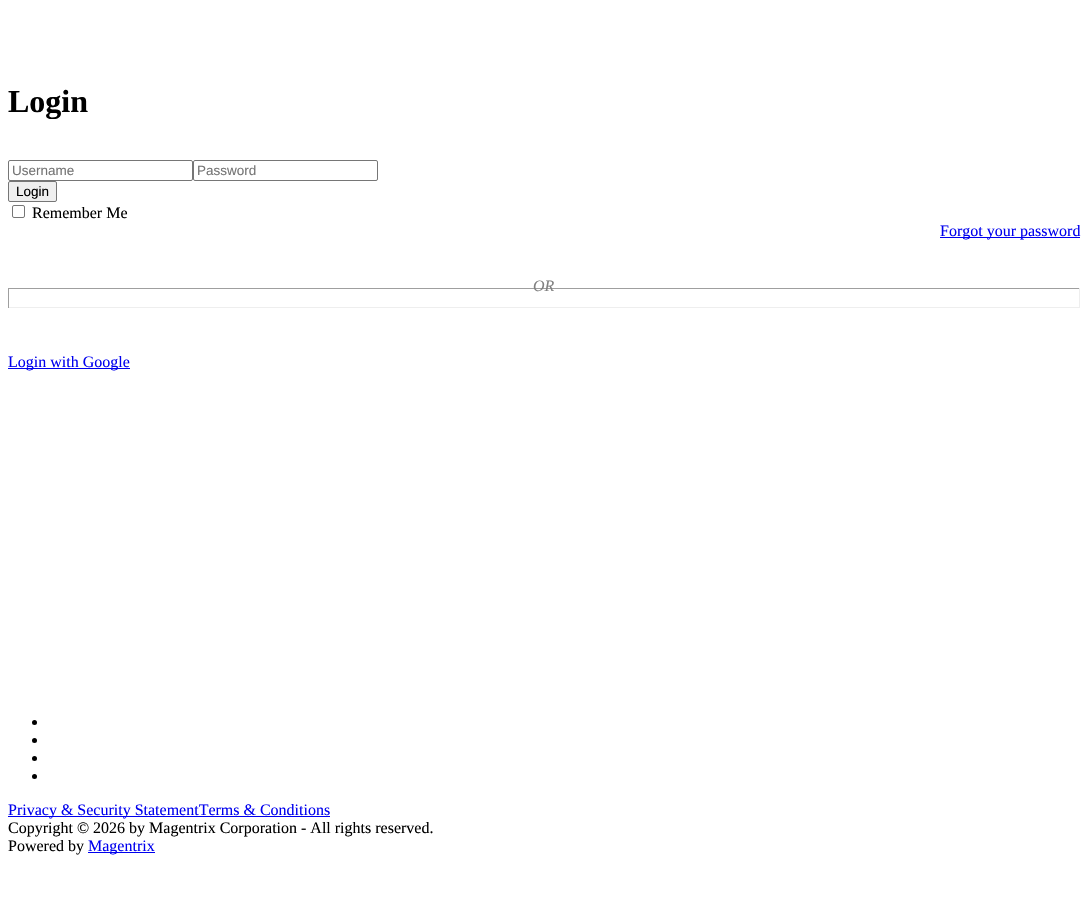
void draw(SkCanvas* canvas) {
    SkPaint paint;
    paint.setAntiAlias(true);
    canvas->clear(0xFFFFFFFF);
    SkFont font1(fontMgr->matchFamilyStyle("Liberation Serif", SkFontStyle::Bold()), 32);
    font1.setSubpixel(true);
    paint.setColor(0xFF000000);
    canvas->drawString("Login", 8, 112, font1, paint);
    paint.setStyle(SkPaint::kStroke_Style);
    paint.setStrokeWidth(1);
    paint.setColor(0xFF767676);
    canvas->drawRoundRect(SkRect::MakeXYWH(8.5f, 160.5f, 184, 20), 1.5f, 1.5f, paint);
    SkFont font2(fontMgr->matchFamilyStyle("Liberation Sans", SkFontStyle::Normal()), 13.5f);
    font2.setSubpixel(true);
    paint.setStyle(SkPaint::kFill_Style);
    paint.setColor(0xFF757575);
    canvas->drawString("Username", 12, 175, font2, paint);
    paint.setStyle(SkPaint::kStroke_Style);
    paint.setColor(0xFF767676);
    canvas->drawRoundRect(SkRect::MakeXYWH(193.5f, 160.5f, 184, 20), 1.5f, 1.5f, paint);
    paint.setStyle(SkPaint::kFill_Style);
    paint.setColor(0xFF757575);
    canvas->drawString("Password", 197, 175, font2, paint);
    paint.setColor(0xFFEFEFEF);
    canvas->drawRoundRect(SkRect::MakeXYWH(8.5f, 181.5f, 48, 20), 1.5f, 1.5f, paint);
    paint.setStyle(SkPaint::kStroke_Style);
    paint.setColor(0xFF767676);
    canvas->drawRoundRect(SkRect::MakeXYWH(8.5f, 181.5f, 48, 20), 1.5f, 1.5f, paint);
    paint.setStyle(SkPaint::kFill_Style);
    paint.setColor(0xFF000000);
    canvas->drawString("Login", 16, 196, font2, paint);
    paint.setStyle(SkPaint::kStroke_Style);
    paint.setColor(0xFF767676);
    canvas->drawRoundRect(SkRect::MakeXYWH(12.5f, 205.5f, 12, 12), 1.5f, 1.5f, paint);
    SkFont font3(fontMgr->matchFamilyStyle("Liberation Serif", SkFontStyle::Normal()), 16);
    font3.setSubpixel(true);
    paint.setStyle(SkPaint::kFill_Style);
    paint.setColor(0xFF000000);
    canvas->drawString("Remember Me", 32, 218, font3, paint);
    paint.setColor(0xFF0000EE);
    canvas->drawRect(SkRect::MakeXYWH(940, 237, 140, 1), paint);
    canvas->drawString("Forgot your password", 940, 236, font3, paint);
    paint.setColor(0xFF9F9F9F);
    canvas->drawRect(SkRect::MakeXYWH(8, 288, 1072, 1), paint);
    paint.setColor(0xFFEEEEEE);
    canvas->drawRect(SkRect::MakeXYWH(1079, 288, 1, 20), paint);
    canvas->drawRect(SkRect::MakeXYWH(8, 307, 1072, 1), paint);
    paint.setColor(0xFF9F9F9F);
    canvas->drawRect(SkRect::MakeXYWH(8, 288, 1, 20), paint);
    SkFont font4(fontMgr->matchFamilyStyle("Liberation Serif", SkFontStyle::Italic()), 16);
    font4.setSubpixel(true);
    paint.setColor(0xFF808080);
    canvas->drawString("OR", 533, 291, font4, paint);
    paint.setColor(0xFF0000EE);
    canvas->drawRect(SkRect::MakeXYWH(8, 368, 122, 1), paint);
    canvas->drawString("Login with Google", 8, 367, font3, paint);
    paint.setColor(0xFF000000);
    canvas->drawCircle(34.5f, 722.5f, 2.5f, paint);
    canvas->drawCircle(34.5f, 740.5f, 2.5f, paint);
    canvas->drawCircle(34.5f, 758.5f, 2.5f, paint);
    canvas->drawCircle(34.5f, 776.5f, 2.5f, paint);
    paint.setColor(0xFF0000EE);
    canvas->drawRect(SkRect::MakeXYWH(8, 816, 322, 1), paint);
    canvas->drawString("Privacy & Security StatementTerms & Conditions", 8, 815, font3, paint);
    paint.setColor(0xFF000000);
    canvas->drawString("Copyright © 2026 by Magentrix Corporation - All rights reserved.", 8, 833, font3, paint);
    canvas->drawString("Powered by", 8, 851, font3, paint);
    paint.setColor(0xFF0000EE);
    canvas->drawRect(SkRect::MakeXYWH(88, 852, 67, 1), paint);
    canvas->drawString("Magentrix", 88, 851, font3, paint);
}
